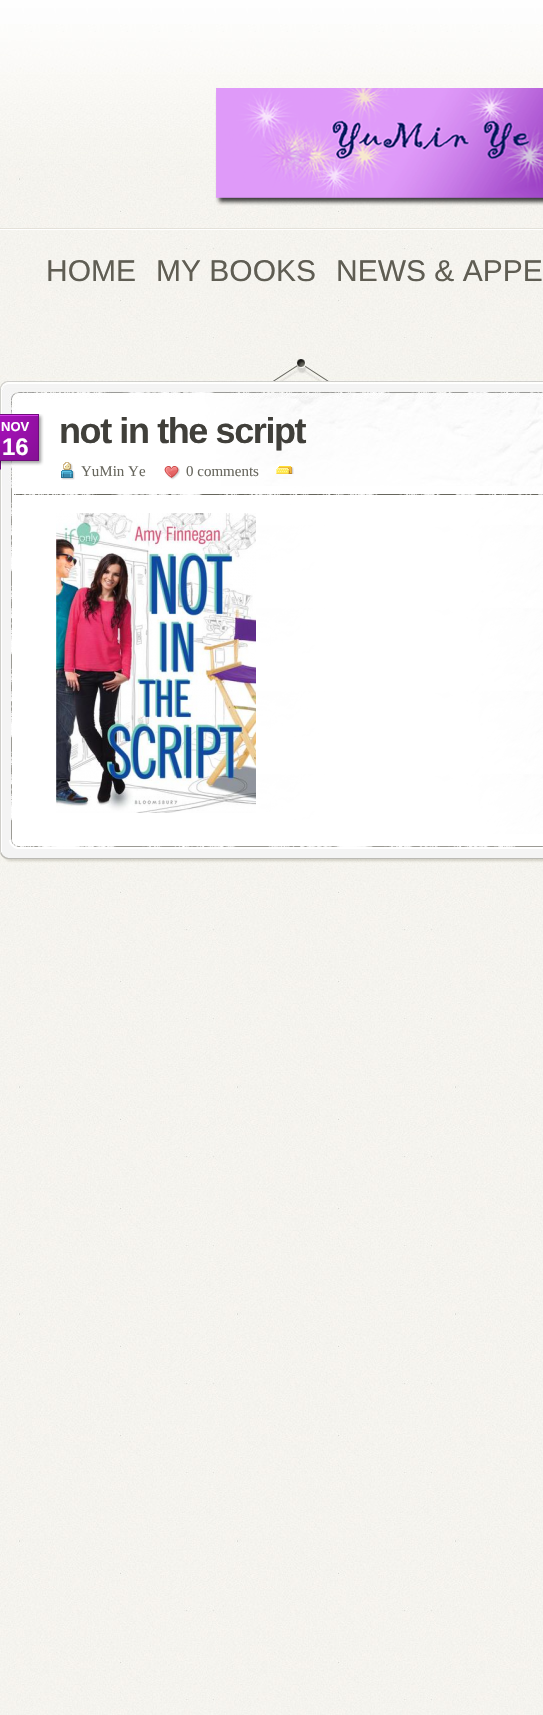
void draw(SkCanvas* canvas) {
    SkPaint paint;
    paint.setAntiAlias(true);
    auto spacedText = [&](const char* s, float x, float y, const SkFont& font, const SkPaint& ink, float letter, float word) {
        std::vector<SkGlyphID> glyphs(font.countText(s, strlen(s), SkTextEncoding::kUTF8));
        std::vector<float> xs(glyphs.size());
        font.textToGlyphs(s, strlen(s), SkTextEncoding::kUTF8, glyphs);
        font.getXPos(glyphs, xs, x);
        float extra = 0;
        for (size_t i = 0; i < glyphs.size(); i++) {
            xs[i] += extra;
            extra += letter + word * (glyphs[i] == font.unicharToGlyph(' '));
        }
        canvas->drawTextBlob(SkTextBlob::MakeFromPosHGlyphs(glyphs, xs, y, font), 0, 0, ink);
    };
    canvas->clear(0xFFFFFFFF);
    canvas->drawImageRect(SkImages::DeferredFromEncodedData(SkData::MakeFromFileName("img1.png")), SkRect::MakeXYWH(0, 163, 543, 1552), SkSamplingOptions());
    canvas->drawImageRect(SkImages::DeferredFromEncodedData(SkData::MakeFromFileName("img2.png")), SkRect::MakeXYWH(0, 0, 543, 163), SkSamplingOptions());
    canvas->drawImageRect(SkImages::DeferredFromEncodedData(SkData::MakeFromFileName("img3.png")), SkRect::MakeXYWH(215, 88, 328, 118), SkSamplingOptions());
    canvas->drawImageRect(SkImages::DeferredFromEncodedData(SkData::MakeFromFileName("img4.png")), SkRect::MakeXYWH(0, 228, 543, 2), SkSamplingOptions());
    SkFont font1(fontMgr->matchFamilyStyle("Liberation Sans", SkFontStyle::Normal()), 30);
    font1.setSubpixel(true);
    paint.setColor(0xFF5F5D53);
    canvas->drawString("HOME", 46, 281, font1, paint);
    canvas->drawString("MY BOOKS", 156, 281, font1, paint);
    canvas->drawString("NEWS & APPE", 336, 281, font1, paint);
    canvas->drawImageRect(SkImages::DeferredFromEncodedData(SkData::MakeFromFileName("img5.png")), SkRect::MakeXYWH(0, 486, 543, 348), SkSamplingOptions());
    canvas->drawImageRect(SkImages::DeferredFromEncodedData(SkData::MakeFromFileName("img6.png")), SkRect::MakeXYWH(0, 359, 543, 127), SkSamplingOptions());
    canvas->drawImageRect(SkImages::DeferredFromEncodedData(SkData::MakeFromFileName("img7.png")), SkRect::MakeXYWH(0, 414, 44, 56), SkSamplingOptions());
    SkFont font2(fontMgr->matchFamilyStyle("Liberation Sans", SkFontStyle::Bold()), 13);
    font2.setSubpixel(true);
    paint.setColor(0xFFFFFFFF);
    canvas->drawString("NOV", 1, 431, font2, paint);
    SkFont font3(fontMgr->matchFamilyStyle("Liberation Sans", SkFontStyle::Bold()), 24);
    font3.setSubpixel(true);
    canvas->drawString("16", 2, 455, font3, paint);
    SkFont font4(fontMgr->matchFamilyStyle("Liberation Sans", SkFontStyle::Bold()), 36);
    font4.setSubpixel(true);
    paint.setColor(0xFF403F3A);
    spacedText("not in the script", 59, 443, font4, paint, -1.4f, 0);
    canvas->drawImageRect(SkImages::DeferredFromEncodedData(SkData::MakeFromFileName("img8.png")), SkRect::MakeXYWH(14, 494, 529, 1), SkSamplingOptions());
    canvas->drawImageRect(SkImages::DeferredFromEncodedData(SkData::MakeFromFileName("img9.png")), SkRect::MakeXYWH(61, 462, 14, 18), SkSamplingOptions());
    SkFont font5(fontMgr->matchFamilyStyle("Liberation Serif", SkFontStyle::Normal()), 15);
    font5.setSubpixel(true);
    paint.setColor(0xFF68675E);
    canvas->drawString("YuMin Ye", 81, 476, font5, paint);
    canvas->drawImageRect(SkImages::DeferredFromEncodedData(SkData::MakeFromFileName("img10.png")), SkRect::MakeXYWH(164, 466, 16, 14), SkSamplingOptions());
    canvas->drawString("0 comments", 186, 476, font5, paint);
    canvas->drawImageRect(SkImages::DeferredFromEncodedData(SkData::MakeFromFileName("img11.png")), SkRect::MakeXYWH(276, 466, 18, 8), SkSamplingOptions());
    canvas->drawImageRect(SkImages::DeferredFromEncodedData(SkData::MakeFromFileName("img12.png")), SkRect::MakeXYWH(56, 513, 200, 300), SkSamplingOptions());
    canvas->drawImageRect(SkImages::DeferredFromEncodedData(SkData::MakeFromFileName("img13.png")), SkRect::MakeXYWH(0, 834, 543, 31), SkSamplingOptions());
}
